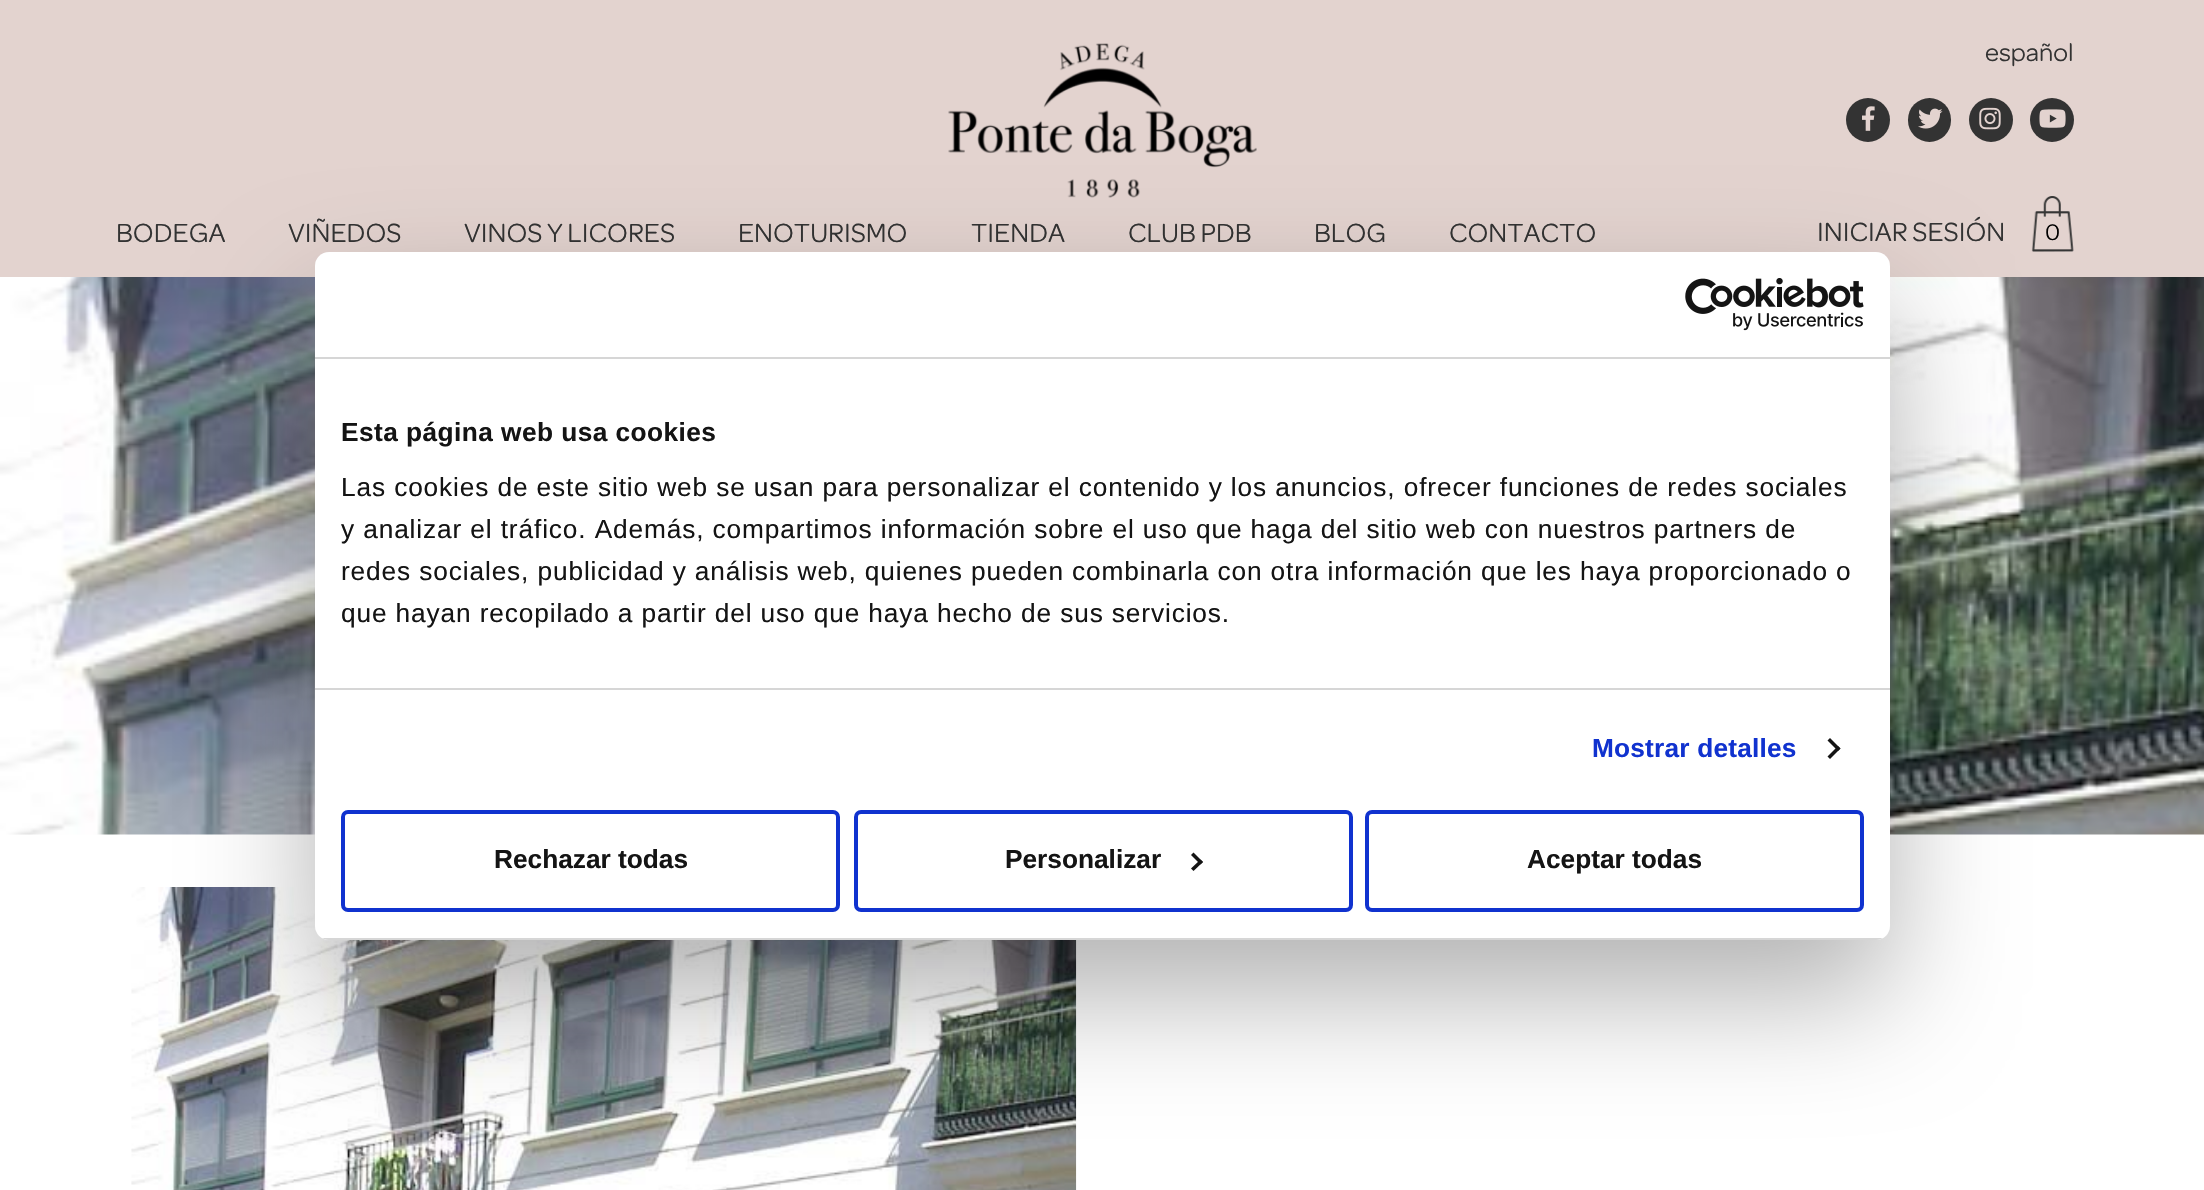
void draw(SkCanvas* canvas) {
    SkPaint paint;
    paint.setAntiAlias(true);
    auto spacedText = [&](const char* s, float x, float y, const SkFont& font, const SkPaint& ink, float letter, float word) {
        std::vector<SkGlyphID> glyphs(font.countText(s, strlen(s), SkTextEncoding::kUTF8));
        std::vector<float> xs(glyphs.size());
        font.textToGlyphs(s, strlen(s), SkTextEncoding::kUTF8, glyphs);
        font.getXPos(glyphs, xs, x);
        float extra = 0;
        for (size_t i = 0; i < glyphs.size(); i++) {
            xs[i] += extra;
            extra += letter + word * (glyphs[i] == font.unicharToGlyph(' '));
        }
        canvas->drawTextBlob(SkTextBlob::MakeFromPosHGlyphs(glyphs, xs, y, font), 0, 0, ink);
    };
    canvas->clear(0xFFFFFFFF);
    paint.setColor(0xFFE3D3CF);
    canvas->drawRect(SkRect::MakeXYWH(0, 0, 2204, 277), paint);
    canvas->drawImageRect(SkImages::DeferredFromEncodedData(SkData::MakeFromFileName("img1.png")), SkRect::MakeXYWH(948, 43, 309, 155), SkSamplingOptions());
    SkFont font1(fontMgr->matchFamilyStyle("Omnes", SkFontStyle::Normal()), 26.25f);
    font1.setSubpixel(true);
    paint.setColor(0xFF333333);
    canvas->drawString("español", 1985, 61, font1, paint);
    canvas->drawCircle(1868, 120, 22, paint);
    canvas->drawImageRect(SkImages::DeferredFromEncodedData(SkData::MakeFromFileName("img2.png")), SkRect::MakeXYWH(1862, 106, 13, 25), SkSamplingOptions());
    canvas->drawRoundRect(SkRect::MakeXYWH(1908, 98, 43, 44), 21.5f, 21.5f, paint);
    canvas->drawImageRect(SkImages::DeferredFromEncodedData(SkData::MakeFromFileName("img3.png")), SkRect::MakeXYWH(1918, 108, 25, 21), SkSamplingOptions());
    canvas->drawCircle(1991, 120, 22, paint);
    canvas->drawImageRect(SkImages::DeferredFromEncodedData(SkData::MakeFromFileName("img4.png")), SkRect::MakeXYWH(1979, 107, 22, 23), SkSamplingOptions());
    canvas->drawCircle(2052, 120, 22, paint);
    canvas->drawImageRect(SkImages::DeferredFromEncodedData(SkData::MakeFromFileName("img5.png")), SkRect::MakeXYWH(2039, 109, 27, 19), SkSamplingOptions());
    SkFont font2(fontMgr->matchFamilyStyle("Omnes", SkFontStyle::Normal()), 28);
    font2.setSubpixel(true);
    canvas->drawString("BODEGA", 116, 242, font2, paint);
    canvas->drawString("VIÑEDOS", 288, 242, font2, paint);
    canvas->drawString("VINOS Y LICORES", 464, 242, font2, paint);
    canvas->drawString("ENOTURISMO", 738, 242, font2, paint);
    canvas->drawString("TIENDA", 971, 242, font2, paint);
    canvas->drawString("CLUB PDB", 1128, 242, font2, paint);
    canvas->drawString("BLOG", 1314, 242, font2, paint);
    canvas->drawString("CONTACTO", 1449, 242, font2, paint);
    canvas->drawString("INICIAR SESIÓN", 1817, 241, font2, paint);
    canvas->drawImageRect(SkImages::DeferredFromEncodedData(SkData::MakeFromFileName("img6.png")), SkRect::MakeXYWH(2031, 196, 43, 56), SkSamplingOptions());
    SkFont font3(fontMgr->matchFamilyStyle("Omnes", SkFontStyle::Normal()), 24);
    font3.setSubpixel(true);
    paint.setColor(0xFF000000);
    canvas->drawString("0", 2045, 240, font3, paint);
    canvas->drawImageRect(SkImages::DeferredFromEncodedData(SkData::MakeFromFileName("img7.png")), SkRect::MakeXYWH(0, 277, 2204, 558), SkSamplingOptions());
    canvas->drawImageRect(SkImages::DeferredFromEncodedData(SkData::MakeFromFileName("img8.png")), SkRect::MakeXYWH(131, 887, 946, 303), SkSamplingOptions());
    paint.setColor(0x4D000000);
    paint.setMaskFilter(SkMaskFilter::MakeBlur(kNormal_SkBlurStyle, 59.5f));
    canvas->drawRoundRect(SkRect::MakeXYWH(315, 308, 1575, 688), 14, 14, paint);
    paint.setMaskFilter(nullptr);
    paint.setColor(0xFFFFFFFF);
    canvas->drawRoundRect(SkRect::MakeXYWH(315, 252, 1575, 688), 14, 14, paint);
    paint.setColor(0xFFD6D6D6);
    canvas->drawRect(SkRect::MakeXYWH(315, 357, 1575, 2), paint);
    canvas->drawImageRect(SkImages::DeferredFromEncodedData(SkData::MakeFromFileName("img9.png")), SkRect::MakeXYWH(1685, 278, 179, 53), SkSamplingOptions());
    canvas->drawRect(SkRect::MakeXYWH(315, 688, 1575, 2), paint);
    SkFont font4(fontMgr->matchFamilyStyle("Liberation Sans", SkFontStyle::Bold()), 26.25f);
    font4.setSubpixel(true);
    paint.setColor(0xFF141414);
    spacedText("Esta página web usa cookies", 341, 441, font4, paint, 0.45f, 0);
    SkFont font5(fontMgr->matchFamilyStyle("Liberation Sans", SkFontStyle::Normal()), 26.25f);
    font5.setSubpixel(true);
    spacedText("Las cookies de este sitio web se usan para personalizar el contenido y los anuncios, ofrecer funciones de redes sociales", 341, 496, font5, paint, 0.88f, 0);
    spacedText("y analizar el tráfico. Además, compartimos información sobre el uso que haga del sitio web con nuestros partners de", 341, 538, font5, paint, 0.88f, 0);
    spacedText("redes sociales, publicidad y análisis web, quienes pueden combinarla con otra información que les haya proporcionado o", 341, 580, font5, paint, 0.88f, 0);
    spacedText("que hayan recopilado a partir del uso que haya hecho de sus servicios.", 341, 622, font5, paint, 0.88f, 0);
    paint.setColor(0xFF1032CF);
    spacedText("Mostrar detalles", 1592, 757, font4, paint, 0.2f, 0);
    paint.setColor(0xFF141414);
    canvas->drawPath(SkPathBuilder().moveTo(1830, 738).lineTo(1840.5f, 748.5f).lineTo(1838, 751).lineTo(1827.5f, 740.5f).close().detach(), paint);
    canvas->drawPath(SkPathBuilder().moveTo(1838, 746).lineTo(1840.5f, 748.5f).lineTo(1830, 759).lineTo(1827.5f, 756.5f).close().detach(), paint);
    canvas->save();
    canvas->clipPath(SkPathBuilder().moveTo(329, 252).lineTo(1876, 252).cubicTo(1883.5f, 252, 1890, 258.5f, 1890, 266).lineTo(1890, 926).cubicTo(1890, 933.5f, 1883.5f, 940, 1876, 940).lineTo(329, 940).cubicTo(321.5f, 940, 315, 933.5f, 315, 926).lineTo(315, 266).cubicTo(315, 258.5f, 321.5f, 252, 329, 252).close().detach(), true);
    paint.setColor(0xFFD6D6D6);
    canvas->drawRect(SkRect::MakeXYWH(315, 938, 1575, 2), paint);
    canvas->restore();
    paint.setStyle(SkPaint::kStroke_Style);
    paint.setStrokeWidth(4);
    paint.setColor(0xFF1032CF);
    canvas->drawRoundRect(SkRect::MakeXYWH(343, 812, 495, 98), 5, 5, paint);
    paint.setStyle(SkPaint::kFill_Style);
    paint.setColor(0xFF141414);
    canvas->drawString("Rechazar todas", 494, 868, font4, paint);
    paint.setStyle(SkPaint::kStroke_Style);
    paint.setColor(0xFF1032CF);
    canvas->drawRoundRect(SkRect::MakeXYWH(856, 812, 495, 98), 5, 5, paint);
    paint.setStyle(SkPaint::kFill_Style);
    paint.setColor(0xFF141414);
    canvas->drawString("Personalizar", 1005, 868, font4, paint);
    canvas->drawPath(SkPathBuilder().moveTo(1193.5f, 852.5f).lineTo(1203, 862).lineTo(1200.5f, 864.5f).lineTo(1191, 855).close().detach(), paint);
    canvas->drawPath(SkPathBuilder().moveTo(1200.5f, 859.5f).lineTo(1203, 862).lineTo(1193.5f, 871).lineTo(1191, 868.5f).close().detach(), paint);
    paint.setStyle(SkPaint::kStroke_Style);
    paint.setColor(0xFF1032CF);
    canvas->drawRoundRect(SkRect::MakeXYWH(1367, 812, 495, 98), 5, 5, paint);
    paint.setStyle(SkPaint::kFill_Style);
    paint.setColor(0xFF141414);
    canvas->drawString("Aceptar todas", 1527, 868, font4, paint);
}
